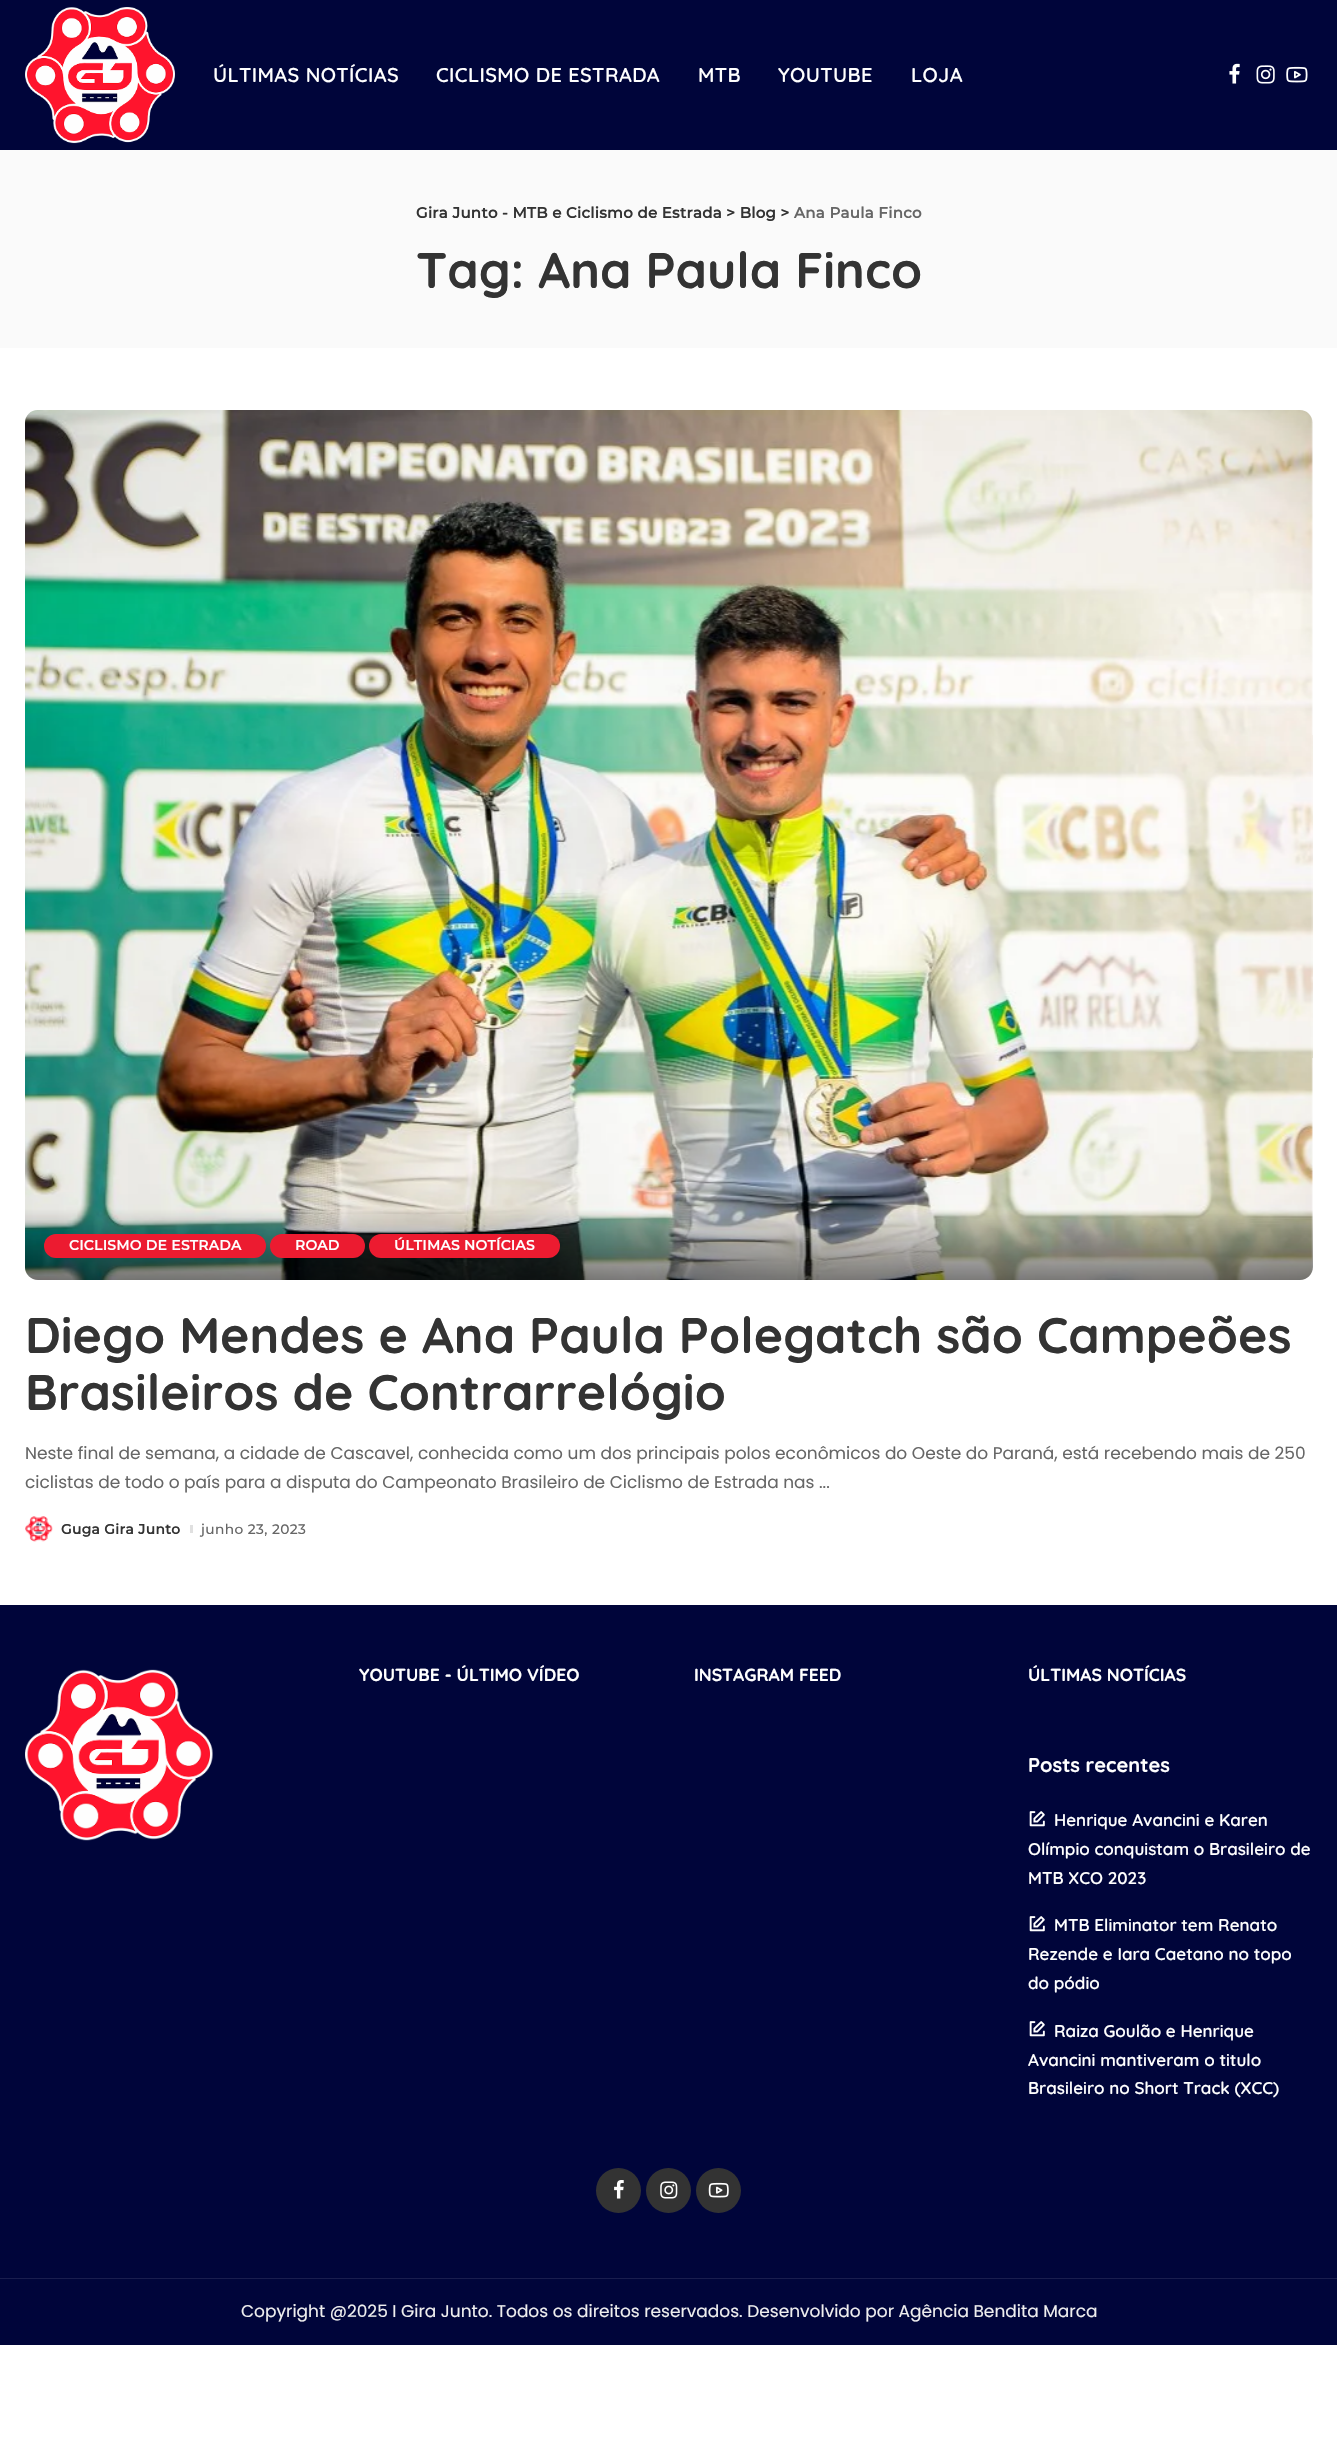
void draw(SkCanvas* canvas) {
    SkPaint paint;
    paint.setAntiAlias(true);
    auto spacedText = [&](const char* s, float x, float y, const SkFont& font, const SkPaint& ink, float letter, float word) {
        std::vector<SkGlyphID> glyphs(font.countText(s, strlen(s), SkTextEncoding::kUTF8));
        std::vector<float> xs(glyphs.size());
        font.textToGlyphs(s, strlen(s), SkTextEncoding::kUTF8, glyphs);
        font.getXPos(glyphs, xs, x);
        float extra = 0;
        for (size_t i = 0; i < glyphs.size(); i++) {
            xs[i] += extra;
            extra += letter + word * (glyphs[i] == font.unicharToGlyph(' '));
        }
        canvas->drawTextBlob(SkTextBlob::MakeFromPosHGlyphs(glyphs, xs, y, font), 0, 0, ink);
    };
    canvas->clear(0xFFFFFFFF);
    paint.setColor(0xFF00053A);
    canvas->drawRect(SkRect::MakeXYWH(0, 0, 1337, 150), paint);
    canvas->drawImageRect(SkImages::DeferredFromEncodedData(SkData::MakeFromFileName("img1.png")), SkRect::MakeXYWH(25, 7, 150, 137), SkSamplingOptions());
    SkFont font1(fontMgr->matchFamilyStyle("Quicksand", SkFontStyle(600, SkFontStyle::kNormal_Width, SkFontStyle::kUpright_Slant)), 20);
    font1.setSubpixel(true);
    paint.setColor(0xFFFFFFFF);
    spacedText("ÚLTIMAS NOTÍCIAS", 213, 82, font1, paint, 0.4f, 0);
    spacedText("CICLISMO DE ESTRADA", 436, 82, font1, paint, 0.4f, 0);
    spacedText("MTB", 698, 82, font1, paint, 0.4f, 0);
    spacedText("YOUTUBE", 778, 82, font1, paint, 0.4f, 0);
    spacedText("LOJA", 911, 82, font1, paint, 0.4f, 0);
    canvas->drawImageRect(SkImages::DeferredFromEncodedData(SkData::MakeFromFileName("img2.png")), SkRect::MakeXYWH(1229, 63, 11, 21), SkSamplingOptions());
    canvas->drawImageRect(SkImages::DeferredFromEncodedData(SkData::MakeFromFileName("img3.png")), SkRect::MakeXYWH(1256, 65, 19, 19), SkSamplingOptions());
    canvas->drawImageRect(SkImages::DeferredFromEncodedData(SkData::MakeFromFileName("img4.png")), SkRect::MakeXYWH(1286, 66, 22, 17), SkSamplingOptions());
    paint.setColor(0xFFFAFAFA);
    canvas->drawRect(SkRect::MakeXYWH(0, 150, 1337, 198), paint);
    SkFont font2(fontMgr->matchFamilyStyle("Montserrat", SkFontStyle::Bold()), 15);
    font2.setSubpixel(true);
    paint.setColor(0xFF333333);
    spacedText("Gira Junto - MTB e Ciclismo de Estrada > Blog >", 416, 218, font2, paint, 0.3f, 0);
    paint.setColor(0xFF666666);
    spacedText("Ana Paula Finco", 794, 218, font2, paint, 0.3f, 0);
    SkFont font3(fontMgr->matchFamilyStyle("Quicksand", SkFontStyle::Bold()), 50);
    font3.setSubpixel(true);
    paint.setColor(0xFF333333);
    canvas->drawString("Tag: Ana Paula Finco", 416, 288, font3, paint);
    canvas->drawImageRect(SkImages::DeferredFromEncodedData(SkData::MakeFromFileName("img5.png")), SkRect::MakeXYWH(25, 410, 1288, 870), SkSamplingOptions());
    {
        const SkColor colors[] = {0x00000000, 0x80000000};
        const float stops[] = {0, 1};
        const SkPoint ends[] = {{669, 1209}, {669, 1280}};
        paint.setShader(SkGradientShader::MakeLinear(ends, colors, stops, 2, SkTileMode::kClamp));
        paint.setAlpha(255);
    }
    canvas->drawPath(SkPathBuilder().moveTo(25, 1209).lineTo(1313, 1209).lineTo(1313, 1267).cubicTo(1313, 1274, 1307, 1280, 1300, 1280).lineTo(38, 1280).cubicTo(31, 1280, 25, 1274, 25, 1267).close().detach(), paint);
    paint.setShader(nullptr);
    paint.setColor(0xFFEC1B30);
    canvas->drawRoundRect(SkRect::MakeXYWH(44, 1234, 222, 24), 12, 12, paint);
    SkFont font4(fontMgr->matchFamilyStyle("Montserrat", SkFontStyle::Bold()), 13.75f);
    font4.setSubpixel(true);
    paint.setColor(0xFFFFFFFF);
    spacedText("CICLISMO DE ESTRADA", 69, 1250, font4, paint, 0.4f, 0);
    paint.setColor(0xFFEC1B30);
    canvas->drawRoundRect(SkRect::MakeXYWH(270, 1234, 95, 24), 12, 12, paint);
    paint.setColor(0xFFFFFFFF);
    spacedText("ROAD", 295, 1250, font4, paint, 0.4f, 0);
    paint.setColor(0xFFEC1B30);
    canvas->drawRoundRect(SkRect::MakeXYWH(369, 1234, 191, 24), 12, 12, paint);
    paint.setColor(0xFFFFFFFF);
    spacedText("ÚLTIMAS NOTÍCIAS", 394, 1250, font4, paint, 0.4f, 0);
    paint.setColor(0xFF333333);
    canvas->drawString("Diego Mendes e Ana Paula Polegatch são Campeões", 25, 1353, font3, paint);
    canvas->drawString("Brasileiros de Contrarrelógio", 25, 1410, font3, paint);
    SkFont font5(fontMgr->matchFamilyStyle("Poppins", SkFontStyle::Normal()), 17);
    font5.setSubpixel(true);
    paint.setColor(0xFF666666);
    canvas->drawString("Neste final de semana, a cidade de Cascavel, conhecida como um dos principais polos econômicos do Oeste do Paraná, está recebendo mais de 250", 25, 1459, font5, paint);
    canvas->drawString("ciclistas de todo o país para a disputa do Campeonato Brasileiro de Ciclismo de Estrada nas", 25, 1488, font5, paint);
    canvas->drawString("...", 819, 1488, font5, paint);
    canvas->drawImageRect(SkImages::DeferredFromEncodedData(SkData::MakeFromFileName("img6.png")), SkRect::MakeXYWH(25, 1516, 28, 26), SkSamplingOptions());
    paint.setColor(0xFF333333);
    spacedText("Guga Gira Junto", 61, 1534, font4, paint, 0.4f, 0);
    paint.setColor(0xFFE0E0E0);
    canvas->drawRect(SkRect::MakeXYWH(190, 1525, 3, 8), paint);
    SkFont font6(fontMgr->matchFamilyStyle("Montserrat", SkFontStyle(100, SkFontStyle::kNormal_Width, SkFontStyle::kUpright_Slant)), 13.75f);
    font6.setSubpixel(true);
    paint.setColor(0xFF666666);
    spacedText("junho 23, 2023", 201, 1534, font6, paint, 0.4f, 0);
    paint.setColor(0xFF00053A);
    canvas->drawRect(SkRect::MakeXYWH(0, 1605, 1337, 740), paint);
    canvas->drawImageRect(SkImages::DeferredFromEncodedData(SkData::MakeFromFileName("img7.png")), SkRect::MakeXYWH(25, 1669, 188, 172), SkSamplingOptions());
    SkFont font7(fontMgr->matchFamilyStyle("Quicksand", SkFontStyle::Bold()), 17.5f);
    font7.setSubpixel(true);
    paint.setColor(0xFFFFFFFF);
    canvas->drawString("YOUTUBE - ÚLTIMO VÍDEO", 359, 1681, font7, paint);
    canvas->drawString("INSTAGRAM FEED", 694, 1681, font7, paint);
    canvas->drawString("ÚLTIMAS NOTÍCIAS", 1028, 1681, font7, paint);
    SkFont font8(fontMgr->matchFamilyStyle("Quicksand", SkFontStyle::Bold()), 20);
    font8.setSubpixel(true);
    canvas->drawString("Posts recentes", 1028, 1772, font8, paint);
    canvas->drawImageRect(SkImages::DeferredFromEncodedData(SkData::MakeFromFileName("img8.png")), SkRect::MakeXYWH(1029, 1811, 16, 16), SkSamplingOptions());
    SkFont font9(fontMgr->matchFamilyStyle("Quicksand", SkFontStyle(600, SkFontStyle::kNormal_Width, SkFontStyle::kUpright_Slant)), 17);
    font9.setSubpixel(true);
    canvas->drawString("Henrique Avancini e Karen", 1054, 1826, font9, paint);
    canvas->drawString("Olímpio conquistam o Brasileiro de", 1028, 1855, font9, paint);
    canvas->drawString("MTB XCO 2023", 1028, 1884, font9, paint);
    canvas->drawImageRect(SkImages::DeferredFromEncodedData(SkData::MakeFromFileName("img8.png")), SkRect::MakeXYWH(1029, 1916, 16, 16), SkSamplingOptions());
    canvas->drawString("MTB Eliminator tem Renato", 1054, 1931, font9, paint);
    canvas->drawString("Rezende e Iara Caetano no topo", 1028, 1960, font9, paint);
    canvas->drawString("do pódio", 1028, 1989, font9, paint);
    canvas->drawImageRect(SkImages::DeferredFromEncodedData(SkData::MakeFromFileName("img8.png")), SkRect::MakeXYWH(1029, 2021, 16, 16), SkSamplingOptions());
    canvas->drawString("Raiza Goulão e Henrique", 1054, 2037, font9, paint);
    canvas->drawString("Avancini mantiveram o titulo", 1028, 2066, font9, paint);
    canvas->drawString("Brasileiro no Short Track (XCC)", 1028, 2094, font9, paint);
    paint.setColor(0xFF333333);
    canvas->drawCircle(618.5f, 2190.5f, 22.5f, paint);
    canvas->drawImageRect(SkImages::DeferredFromEncodedData(SkData::MakeFromFileName("img9.png")), SkRect::MakeXYWH(614, 2180, 10, 19), SkSamplingOptions());
    canvas->drawCircle(668.5f, 2190.5f, 22.5f, paint);
    canvas->drawImageRect(SkImages::DeferredFromEncodedData(SkData::MakeFromFileName("img10.png")), SkRect::MakeXYWH(660, 2181, 18, 18), SkSamplingOptions());
    canvas->drawCircle(718.5f, 2190.5f, 22.5f, paint);
    canvas->drawImageRect(SkImages::DeferredFromEncodedData(SkData::MakeFromFileName("img11.png")), SkRect::MakeXYWH(708, 2182, 21, 16), SkSamplingOptions());
    paint.setColor(0xFF1A1E4E);
    canvas->drawRect(SkRect::MakeXYWH(0, 2278, 1337, 1), paint);
    paint.setColor(0xFFEFEFEF);
    canvas->drawString("Copyright @2025 I Gira Junto. Todos os direitos reservados. Desenvolvido por Agência Bendita Marca", 241, 2317, font5, paint);
}
